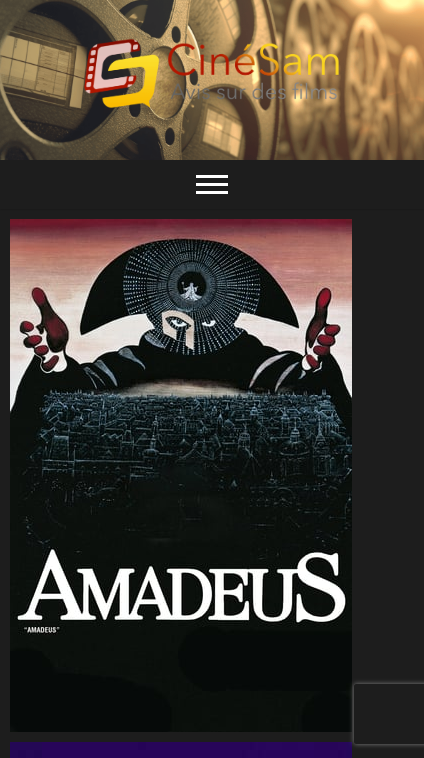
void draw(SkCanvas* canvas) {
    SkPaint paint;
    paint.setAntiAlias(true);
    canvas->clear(0xFFFFFFFF);
    canvas->drawImageRect(SkImages::DeferredFromEncodedData(SkData::MakeFromFileName("img1.png")), SkRect::MakeXYWH(0, 0, 424, 160), SkSamplingOptions());
    canvas->drawImageRect(SkImages::DeferredFromEncodedData(SkData::MakeFromFileName("img2.png")), SkRect::MakeXYWH(84, 38, 255, 71), SkSamplingOptions());
    paint.setColor(0xFF1D1D1D);
    canvas->drawRect(SkRect::MakeXYWH(0, 209, 424, 549), paint);
    paint.setColor(0x26000000);
    paint.setMaskFilter(SkMaskFilter::MakeBlur(kNormal_SkBlurStyle, 1));
    canvas->drawRect(SkRect::MakeXYWH(0, 161, 424, 49), paint);
    paint.setMaskFilter(nullptr);
    paint.setColor(0xFF1D1D1D);
    canvas->drawRect(SkRect::MakeXYWH(0, 160, 424, 49), paint);
    paint.setColor(0xFFFFFFFF);
    canvas->drawRect(SkRect::MakeXYWH(196, 175, 32, 3), paint);
    canvas->drawRect(SkRect::MakeXYWH(196, 183, 32, 3), paint);
    canvas->drawRect(SkRect::MakeXYWH(196, 191, 32, 3), paint);
    canvas->drawImageRect(SkImages::DeferredFromEncodedData(SkData::MakeFromFileName("img3.png")), SkRect::MakeXYWH(10, 219, 342, 513), SkSamplingOptions());
    canvas->drawImageRect(SkImages::DeferredFromEncodedData(SkData::MakeFromFileName("img4.png")), SkRect::MakeXYWH(10, 742, 342, 16), SkSamplingOptions());
    canvas->save();
    canvas->clipPath(SkPathBuilder(SkPathFillType::kEvenOdd).moveTo(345, 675).lineTo(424, 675).lineTo(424, 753).lineTo(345, 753).close().moveTo(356, 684).lineTo(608, 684).cubicTo(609, 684, 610, 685, 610, 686).lineTo(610, 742).cubicTo(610, 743, 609, 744, 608, 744).lineTo(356, 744).cubicTo(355, 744, 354, 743, 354, 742).lineTo(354, 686).cubicTo(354, 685, 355, 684, 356, 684).close().detach(), true);
    paint.setColor(0xFF808080);
    paint.setMaskFilter(SkMaskFilter::MakeBlur(kNormal_SkBlurStyle, 2.5f));
    canvas->drawRoundRect(SkRect::MakeXYWH(354, 684, 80, 60), 2, 2, paint);
    paint.setMaskFilter(nullptr);
    canvas->restore();
}
